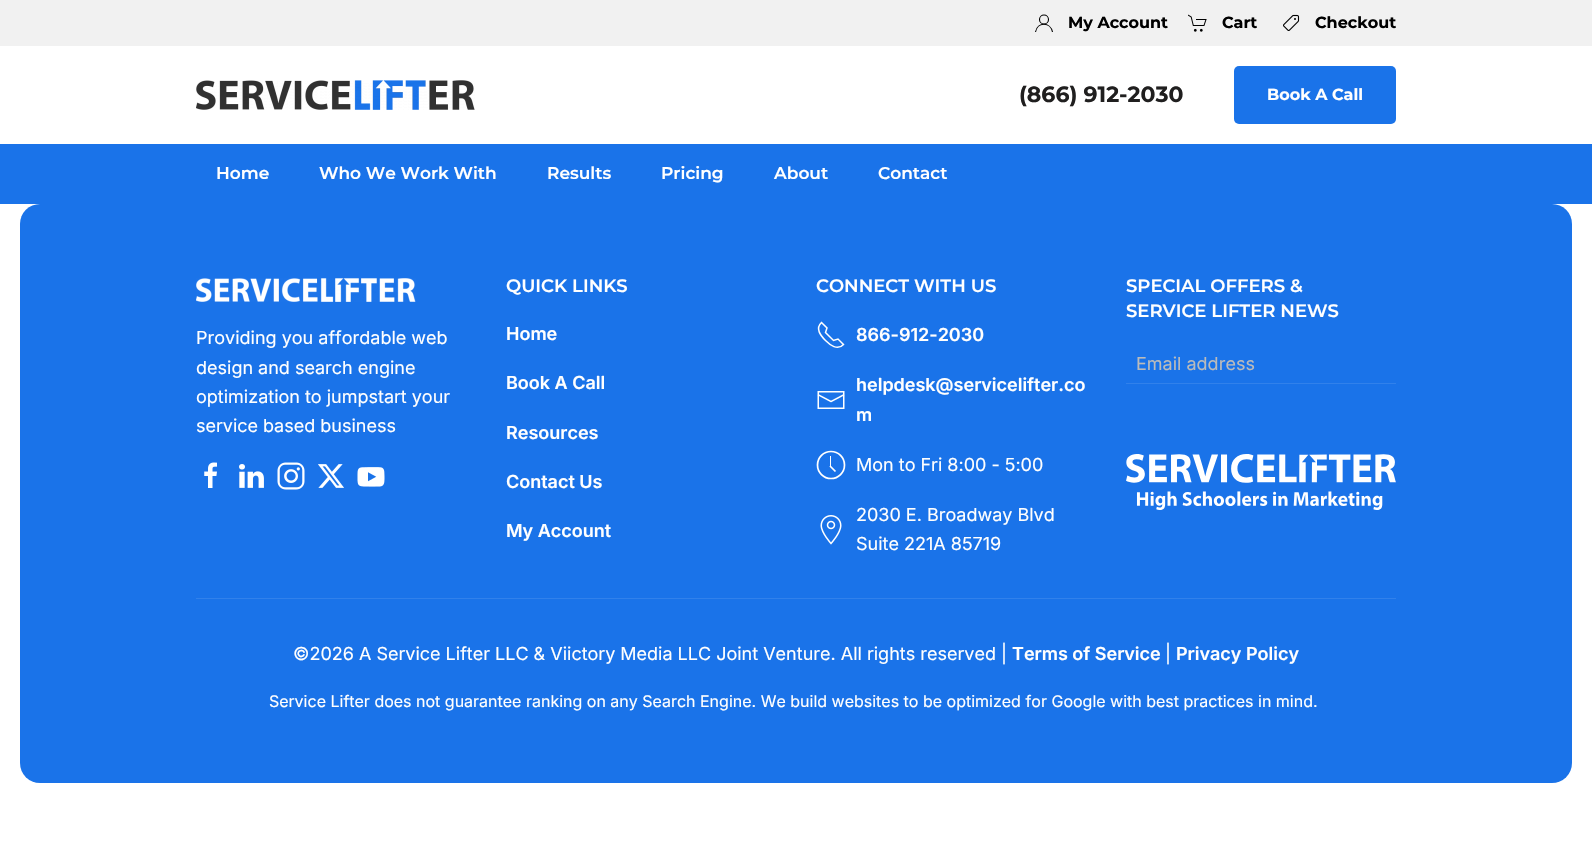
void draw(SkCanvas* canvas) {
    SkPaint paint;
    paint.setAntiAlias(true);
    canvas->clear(0xFFFFFFFF);
    paint.setColor(0xFFF1F1F1);
    canvas->drawRect(SkRect::MakeXYWH(0, 0, 1592, 46), paint);
    paint.setStyle(SkPaint::kStroke_Style);
    paint.setStrokeWidth(1.1f);
    paint.setColor(0xFF000000);
    canvas->drawCircle(1044, 19.5f, 4.5f, paint);
    canvas->drawPath(SkPathBuilder().moveTo(1035.5f, 32).cubicTo(1037.5f, 21.5f, 1050.5f, 22, 1052.5f, 32).detach(), paint);
    SkFont font1(fontMgr->matchFamilyStyle("Montserrat", SkFontStyle(100, SkFontStyle::kNormal_Width, SkFontStyle::kUpright_Slant)), 16);
    font1.setSubpixel(true);
    paint.setStyle(SkPaint::kFill_Style);
    canvas->drawString("My Account", 1068, 28, font1, paint);
    canvas->drawImageRect(SkImages::DeferredFromEncodedData(SkData::MakeFromFileName("img1.png")), SkRect::MakeXYWH(1188, 14, 19, 18), SkSamplingOptions());
    canvas->drawString("Cart", 1222, 28, font1, paint);
    canvas->drawImageRect(SkImages::DeferredFromEncodedData(SkData::MakeFromFileName("img2.png")), SkRect::MakeXYWH(1283, 14, 17, 17), SkSamplingOptions());
    canvas->drawString("Checkout", 1315, 28, font1, paint);
    canvas->drawImageRect(SkImages::DeferredFromEncodedData(SkData::MakeFromFileName("img3.png")), SkRect::MakeXYWH(196, 80, 279, 30), SkSamplingOptions());
    SkFont font2(fontMgr->matchFamilyStyle("Montserrat", SkFontStyle(100, SkFontStyle::kNormal_Width, SkFontStyle::kUpright_Slant)), 22);
    font2.setSubpixel(true);
    paint.setColor(0xFF201F1F);
    canvas->drawString("(866) 912-2030", 1019, 102, font2, paint);
    paint.setColor(0xFF1A73E9);
    canvas->drawRoundRect(SkRect::MakeXYWH(1234, 66, 162, 58), 5, 5, paint);
    paint.setColor(0xFFFFFFFF);
    canvas->drawString("Book A Call", 1267, 100, font1, paint);
    paint.setColor(0xFF1A73E9);
    canvas->drawRect(SkRect::MakeXYWH(0, 144, 1592, 60), paint);
    SkFont font3(fontMgr->matchFamilyStyle("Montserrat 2", SkFontStyle(100, SkFontStyle::kNormal_Width, SkFontStyle::kUpright_Slant)), 17);
    font3.setSubpixel(true);
    paint.setColor(0xFFFFFFFF);
    canvas->drawString("Home", 216, 179, font3, paint);
    canvas->drawString("Who We Work With", 319, 179, font3, paint);
    canvas->drawString("Results", 547, 179, font3, paint);
    canvas->drawString("Pricing", 661, 179, font3, paint);
    canvas->drawString("About", 774, 179, font3, paint);
    canvas->drawString("Contact", 878, 179, font3, paint);
    paint.setColor(0xFF1A73E9);
    canvas->drawRoundRect(SkRect::MakeXYWH(20, 204, 1552, 579), 20, 20, paint);
    canvas->drawImageRect(SkImages::DeferredFromEncodedData(SkData::MakeFromFileName("img4.png")), SkRect::MakeXYWH(196, 278, 220, 24), SkSamplingOptions());
    SkFont font4(fontMgr->matchFamilyStyle("Inter", SkFontStyle::Normal()), 18);
    font4.setSubpixel(true);
    paint.setColor(0xFFFFFFFF);
    canvas->drawString("Providing you affordable web", 196, 344, font4, paint);
    canvas->drawString("design and search engine", 196, 374, font4, paint);
    canvas->drawString("optimization to jumpstart your", 196, 403, font4, paint);
    canvas->drawString("service based business", 196, 432, font4, paint);
    canvas->drawImageRect(SkImages::DeferredFromEncodedData(SkData::MakeFromFileName("img5.png")), SkRect::MakeXYWH(204, 462, 13, 26), SkSamplingOptions());
    canvas->drawImageRect(SkImages::DeferredFromEncodedData(SkData::MakeFromFileName("img6.png")), SkRect::MakeXYWH(239, 464, 25, 24), SkSamplingOptions());
    canvas->drawImageRect(SkImages::DeferredFromEncodedData(SkData::MakeFromFileName("img7.png")), SkRect::MakeXYWH(277, 462, 28, 28), SkSamplingOptions());
    canvas->drawImageRect(SkImages::DeferredFromEncodedData(SkData::MakeFromFileName("img8.png")), SkRect::MakeXYWH(318, 464, 26, 24), SkSamplingOptions());
    canvas->drawImageRect(SkImages::DeferredFromEncodedData(SkData::MakeFromFileName("img9.png")), SkRect::MakeXYWH(357, 467, 28, 20), SkSamplingOptions());
    SkFont font5(fontMgr->matchFamilyStyle("Montserrat 2", SkFontStyle(100, SkFontStyle::kNormal_Width, SkFontStyle::kUpright_Slant)), 18);
    font5.setSubpixel(true);
    canvas->drawString("QUICK LINKS", 506, 292, font5, paint);
    SkFont font6(fontMgr->matchFamilyStyle("Inter", SkFontStyle(600, SkFontStyle::kNormal_Width, SkFontStyle::kUpright_Slant)), 18);
    font6.setSubpixel(true);
    canvas->drawString("Home", 506, 340, font6, paint);
    canvas->drawString("Book A Call", 506, 389, font6, paint);
    canvas->drawString("Resources", 506, 439, font6, paint);
    canvas->drawString("Contact Us", 506, 488, font6, paint);
    canvas->drawString("My Account", 506, 537, font6, paint);
    canvas->drawString("CONNECT WITH US", 816, 292, font5, paint);
    paint.setStyle(SkPaint::kStroke_Style);
    paint.setStrokeWidth(1.5f);
    canvas->drawPath(SkPathBuilder().moveTo(825.5f, 340.5f).cubicTo(830, 345, 837.5f, 351, 843.5f, 344.5f).lineTo(838, 339).lineTo(833.5f, 340.5f).lineTo(825.5f, 332.5f).lineTo(827, 328).lineTo(821.5f, 322.5f).cubicTo(815, 328.5f, 820.5f, 335.5f, 825.5f, 340.5f).detach(), paint);
    paint.setStyle(SkPaint::kFill_Style);
    canvas->drawString("866-912-2030", 856, 341, font6, paint);
    canvas->drawImageRect(SkImages::DeferredFromEncodedData(SkData::MakeFromFileName("img10.png")), SkRect::MakeXYWH(817, 391, 28, 18), SkSamplingOptions());
    canvas->drawString("helpdesk@servicelifter.co", 856, 391, font6, paint);
    canvas->drawString("m", 856, 421, font6, paint);
    paint.setStyle(SkPaint::kStroke_Style);
    paint.setStrokeWidth(1.7f);
    canvas->drawCircle(831, 465, 13.5f, paint);
    paint.setStyle(SkPaint::kFill_Style);
    canvas->drawRect(SkRect::MakeXYWH(830, 456, 1, 11), paint);
    paint.setStyle(SkPaint::kStroke_Style);
    canvas->drawPath(SkPathBuilder().moveTo(835.5f, 471.5f).lineTo(830, 466).detach(), paint);
    paint.setStyle(SkPaint::kFill_Style);
    canvas->drawString("Mon to Fri 8:00 - 5:00", 856, 471, font4, paint);
    canvas->drawImageRect(SkImages::DeferredFromEncodedData(SkData::MakeFromFileName("img11.png")), SkRect::MakeXYWH(820, 515, 22, 30), SkSamplingOptions());
    canvas->drawString("2030 E. Broadway Blvd", 856, 521, font4, paint);
    canvas->drawString("Suite 221A 85719", 856, 550, font4, paint);
    canvas->drawString("SPECIAL OFFERS &", 1126, 292, font5, paint);
    canvas->drawString("SERVICE LIFTER NEWS", 1126, 317, font5, paint);
    paint.setColor(0xFF3181EB);
    canvas->drawRect(SkRect::MakeXYWH(1126, 383, 270, 1), paint);
    paint.setColor(0xFFBBBBBB);
    canvas->drawString("Email address", 1136, 370, font4, paint);
    canvas->drawImageRect(SkImages::DeferredFromEncodedData(SkData::MakeFromFileName("img12.png")), SkRect::MakeXYWH(1126, 454, 270, 56), SkSamplingOptions());
    paint.setColor(0xFF3181EB);
    canvas->drawRect(SkRect::MakeXYWH(196, 598, 1200, 1), paint);
    paint.setColor(0xFFFFFFFF);
    canvas->drawString("©2026 A Service Lifter LLC & Viictory Media LLC Joint Venture. All rights reserved |", 293, 660, font4, paint);
    canvas->drawString("Terms of Service", 1012, 660, font6, paint);
    canvas->drawString("|", 1165, 660, font4, paint);
    canvas->drawString("Privacy Policy", 1176, 660, font6, paint);
    SkFont font7(fontMgr->matchFamilyStyle("Inter", SkFontStyle::Normal()), 16);
    font7.setSubpixel(true);
    canvas->drawString("Service Lifter does not guarantee ranking on any Search Engine. We build websites to be optimized for Google with best practices in mind.", 269, 707, font7, paint);
}
